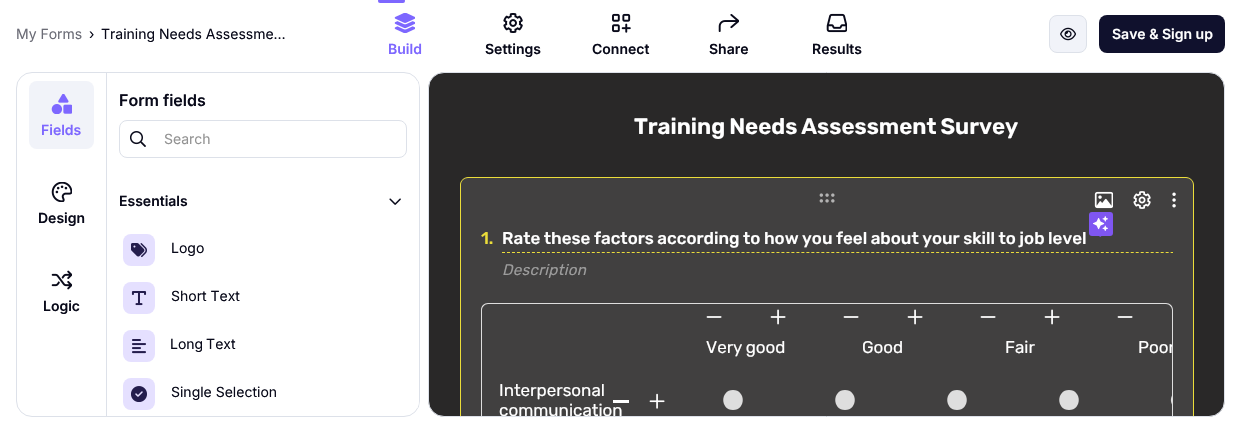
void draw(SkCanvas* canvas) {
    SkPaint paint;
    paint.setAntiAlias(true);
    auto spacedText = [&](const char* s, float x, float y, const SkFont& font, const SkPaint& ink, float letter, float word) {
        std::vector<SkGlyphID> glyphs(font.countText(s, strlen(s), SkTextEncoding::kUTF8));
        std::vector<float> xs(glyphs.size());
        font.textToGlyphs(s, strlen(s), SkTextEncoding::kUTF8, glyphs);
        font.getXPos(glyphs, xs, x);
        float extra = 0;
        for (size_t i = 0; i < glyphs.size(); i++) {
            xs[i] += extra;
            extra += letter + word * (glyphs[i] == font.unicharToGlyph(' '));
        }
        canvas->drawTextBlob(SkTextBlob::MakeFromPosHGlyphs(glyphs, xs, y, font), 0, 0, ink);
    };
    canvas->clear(0xFFFFFFFF);
    SkFont font1(fontMgr->matchFamilyStyle("Inter", SkFontStyle::Normal()), 14);
    font1.setSubpixel(true);
    paint.setColor(0xFF6B6C76);
    canvas->drawString("My Forms", 16, 39, font1, paint);
    paint.setColor(0xFF090A1A);
    canvas->drawString("›", 89, 39, font1, paint);
    canvas->drawString("Training Needs Assessme…", 101, 39, font1, paint);
    paint.setColor(0xFFF1F3F9);
    canvas->drawRoundRect(SkRect::MakeXYWH(1049.5f, 15.5f, 37, 37), 7.5f, 7.5f, paint);
    paint.setStyle(SkPaint::kStroke_Style);
    paint.setStrokeWidth(1);
    paint.setColor(0xFFDDE1E9);
    canvas->drawRoundRect(SkRect::MakeXYWH(1049.5f, 15.5f, 37, 37), 7.5f, 7.5f, paint);
    canvas->drawImageRect(SkImages::DeferredFromEncodedData(SkData::MakeFromFileName("img1.png")), SkRect::MakeXYWH(1060, 27, 16, 14), SkSamplingOptions());
    paint.setStyle(SkPaint::kFill_Style);
    paint.setColor(0xFF10112D);
    canvas->drawRoundRect(SkRect::MakeXYWH(1099, 15, 126, 38), 8, 8, paint);
    SkFont font2(fontMgr->matchFamilyStyle("Inter", SkFontStyle(600, SkFontStyle::kNormal_Width, SkFontStyle::kUpright_Slant)), 14);
    font2.setSubpixel(true);
    paint.setColor(0xFFFFFFFF);
    canvas->drawString("Save & Sign up", 1112, 39, font2, paint);
    paint.setColor(0xFF7D67FF);
    canvas->drawRoundRect(SkRect::MakeXYWH(378, -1, 27, 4), 2, 2, paint);
    canvas->drawImageRect(SkImages::DeferredFromEncodedData(SkData::MakeFromFileName("img2.png")), SkRect::MakeXYWH(394, 13, 21, 20), SkSamplingOptions());
    canvas->drawString("Build", 388, 54, font2, paint);
    canvas->drawImageRect(SkImages::DeferredFromEncodedData(SkData::MakeFromFileName("img3.png")), SkRect::MakeXYWH(503, 13, 20, 20), SkSamplingOptions());
    paint.setColor(0xFF090A1A);
    canvas->drawString("Settings", 485, 54, font2, paint);
    canvas->drawImageRect(SkImages::DeferredFromEncodedData(SkData::MakeFromFileName("img4.png")), SkRect::MakeXYWH(612, 13, 19, 20), SkSamplingOptions());
    canvas->drawString("Connect", 592, 54, font2, paint);
    canvas->drawImageRect(SkImages::DeferredFromEncodedData(SkData::MakeFromFileName("img5.png")), SkRect::MakeXYWH(718, 14, 21, 18), SkSamplingOptions());
    canvas->drawString("Share", 709, 54, font2, paint);
    canvas->drawImageRect(SkImages::DeferredFromEncodedData(SkData::MakeFromFileName("img6.png")), SkRect::MakeXYWH(826, 13, 21, 20), SkSamplingOptions());
    canvas->drawString("Results", 812, 54, font2, paint);
    paint.setStyle(SkPaint::kStroke_Style);
    paint.setColor(0xFFDDE1E9);
    canvas->drawRoundRect(SkRect::MakeXYWH(16.5f, 72.5f, 403, 344), 15.5f, 15.5f, paint);
    paint.setStyle(SkPaint::kFill_Style);
    paint.setColor(0xFFF1F3F9);
    canvas->drawRoundRect(SkRect::MakeXYWH(29, 81, 65, 68), 8, 8, paint);
    canvas->drawImageRect(SkImages::DeferredFromEncodedData(SkData::MakeFromFileName("img7.png")), SkRect::MakeXYWH(51, 94, 21, 20), SkSamplingOptions());
    paint.setColor(0xFF7D67FF);
    canvas->drawString("Fields", 41, 135, font2, paint);
    canvas->drawImageRect(SkImages::DeferredFromEncodedData(SkData::MakeFromFileName("img8.png")), SkRect::MakeXYWH(51, 182, 21, 20), SkSamplingOptions());
    paint.setColor(0xFF090A1A);
    canvas->drawString("Design", 38, 223, font2, paint);
    canvas->drawImageRect(SkImages::DeferredFromEncodedData(SkData::MakeFromFileName("img9.png")), SkRect::MakeXYWH(51, 270, 21, 20), SkSamplingOptions());
    canvas->drawString("Logic", 43, 311, font2, paint);
    paint.setColor(0xFFDDE1E9);
    canvas->drawRect(SkRect::MakeXYWH(106, 73, 1, 343), paint);
    canvas->save();
    canvas->clipPath(SkPathBuilder().moveTo(32, 73).lineTo(404, 73).cubicTo(412.5f, 73, 419, 79.5f, 419, 88).lineTo(419, 401).cubicTo(419, 409.5f, 412.5f, 416, 404, 416).lineTo(32, 416).cubicTo(23.5f, 416, 17, 409.5f, 17, 401).lineTo(17, 88).cubicTo(17, 79.5f, 23.5f, 73, 32, 73).close().detach(), true);
    paint.setColor(0xFFFFFFFF);
    canvas->drawRect(SkRect::MakeXYWH(119, 81, 300, 327), paint);
    canvas->restore();
    SkFont font3(fontMgr->matchFamilyStyle("Inter", SkFontStyle(600, SkFontStyle::kNormal_Width, SkFontStyle::kUpright_Slant)), 16);
    font3.setSubpixel(true);
    paint.setColor(0xFF090A1A);
    canvas->drawString("Form fields", 119, 106, font3, paint);
    paint.setStyle(SkPaint::kStroke_Style);
    paint.setColor(0xFFDDE1E9);
    canvas->drawRoundRect(SkRect::MakeXYWH(119.5f, 120.5f, 287, 37), 7.5f, 7.5f, paint);
    canvas->drawImageRect(SkImages::DeferredFromEncodedData(SkData::MakeFromFileName("img10.png")), SkRect::MakeXYWH(130, 131, 16, 16), SkSamplingOptions());
    paint.setStyle(SkPaint::kFill_Style);
    paint.setColor(0xFF939393);
    canvas->drawString("Search", 164, 144, font1, paint);
    paint.setColor(0xFF090A1A);
    canvas->drawString("Essentials", 119, 206, font2, paint);
    canvas->drawImageRect(SkImages::DeferredFromEncodedData(SkData::MakeFromFileName("img11.png")), SkRect::MakeXYWH(389, 198, 12, 7), SkSamplingOptions());
    paint.setColor(0xFFE5E0FF);
    canvas->drawRoundRect(SkRect::MakeXYWH(123, 234, 32, 32), 8, 8, paint);
    canvas->drawImageRect(SkImages::DeferredFromEncodedData(SkData::MakeFromFileName("img12.png")), SkRect::MakeXYWH(131, 243, 16, 15), SkSamplingOptions());
    paint.setColor(0xFF090A1A);
    canvas->drawString("Logo", 171, 253, font1, paint);
    paint.setColor(0xFFE5E0FF);
    canvas->drawRoundRect(SkRect::MakeXYWH(123, 282, 32, 32), 8, 8, paint);
    canvas->drawImageRect(SkImages::DeferredFromEncodedData(SkData::MakeFromFileName("img13.png")), SkRect::MakeXYWH(131, 291, 16, 15), SkSamplingOptions());
    paint.setColor(0xFF090A1A);
    canvas->drawString("Short Text", 171, 301, font1, paint);
    paint.setColor(0xFFE5E0FF);
    canvas->drawRoundRect(SkRect::MakeXYWH(123, 330, 32, 32), 8, 8, paint);
    canvas->drawImageRect(SkImages::DeferredFromEncodedData(SkData::MakeFromFileName("img14.png")), SkRect::MakeXYWH(132, 339, 14, 15), SkSamplingOptions());
    paint.setColor(0xFF090A1A);
    spacedText("Long Text", 170, 349, font1, paint, 0, -1);
    paint.setColor(0xFFE5E0FF);
    canvas->drawRoundRect(SkRect::MakeXYWH(123, 378, 32, 32), 8, 8, paint);
    canvas->drawImageRect(SkImages::DeferredFromEncodedData(SkData::MakeFromFileName("img15.png")), SkRect::MakeXYWH(131, 386, 16, 16), SkSamplingOptions());
    paint.setColor(0xFF090A1A);
    canvas->drawString("Single Selection", 171, 397, font1, paint);
    paint.setColor(0xFF292828);
    canvas->drawRoundRect(SkRect::MakeXYWH(428.5f, 72.5f, 796, 344), 15.5f, 15.5f, paint);
    paint.setStyle(SkPaint::kStroke_Style);
    paint.setColor(0xFFDDE1E9);
    canvas->drawRoundRect(SkRect::MakeXYWH(428.5f, 72.5f, 796, 344), 15.5f, 15.5f, paint);
    SkFont font4(fontMgr->matchFamilyStyle("Rubik", SkFontStyle(600, SkFontStyle::kNormal_Width, SkFontStyle::kUpright_Slant)), 22.4f);
    font4.setSubpixel(true);
    paint.setStyle(SkPaint::kFill_Style);
    paint.setColor(0xFFFFFFFF);
    spacedText("Training Needs Assessment Survey", 634, 134, font4, paint, 0, -1);
    paint.setColor(0xFF414040);
    canvas->drawPath(SkPathBuilder().moveTo(468, 177).lineTo(1186, 177).cubicTo(1190.5f, 177, 1194, 180.5f, 1194, 185).lineTo(1194, 416).lineTo(460, 416).lineTo(460, 185).cubicTo(460, 180.5f, 463.5f, 177, 468, 177).close().detach(), paint);
    paint.setColor(0xFFEBDD3A);
    canvas->drawPath(SkPathBuilder().moveTo(468, 177).cubicTo(464, 177, 460, 181, 460, 185).lineTo(460, 416).lineTo(461, 416).lineTo(461, 185).cubicTo(461, 181, 464, 178, 468, 178).lineTo(1186, 178).cubicTo(1190, 178, 1193, 181, 1193, 185).lineTo(1193, 416).lineTo(1194, 416).lineTo(1194, 185).cubicTo(1194, 181, 1190, 177, 1186, 177).close().detach(), paint);
    canvas->drawImageRect(SkImages::DeferredFromEncodedData(SkData::MakeFromFileName("img16.png")), SkRect::MakeXYWH(819, 193, 16, 10), SkSamplingOptions());
    canvas->drawImageRect(SkImages::DeferredFromEncodedData(SkData::MakeFromFileName("img17.png")), SkRect::MakeXYWH(1094, 191, 19, 18), SkSamplingOptions());
    canvas->drawImageRect(SkImages::DeferredFromEncodedData(SkData::MakeFromFileName("img18.png")), SkRect::MakeXYWH(1133, 191, 18, 18), SkSamplingOptions());
    canvas->drawImageRect(SkImages::DeferredFromEncodedData(SkData::MakeFromFileName("img19.png")), SkRect::MakeXYWH(1172, 192, 4, 16), SkSamplingOptions());
    SkFont font5(fontMgr->matchFamilyStyle("Rubik", SkFontStyle(300, SkFontStyle::kNormal_Width, SkFontStyle::kUpright_Slant)), 17);
    font5.setSubpixel(true);
    canvas->drawString("1.", 481, 244, font5, paint);
    paint.setStyle(SkPaint::kStroke_Style);
    paint.setPathEffect(SkDashPathEffect::Make({{3, 1.99f}}, 0));
    canvas->drawPath(SkPathBuilder().moveTo(502, 252.5f).lineTo(1173, 252.5f).detach(), paint);
    paint.setPathEffect(nullptr);
    paint.setStyle(SkPaint::kFill_Style);
    paint.setColor(0xFF7F56F2);
    canvas->drawPath(SkPathBuilder().moveTo(1101, 223).lineTo(1107.5f, 232).lineTo(1100, 237).lineTo(1093.5f, 228).close().detach(), paint);
    canvas->drawRoundRect(SkRect::MakeXYWH(1089, 212, 24, 24), 3, 3, paint);
    canvas->drawImageRect(SkImages::DeferredFromEncodedData(SkData::MakeFromFileName("img20.png")), SkRect::MakeXYWH(1093, 216, 15, 15), SkSamplingOptions());
    paint.setColor(0xFFFFFFFF);
    spacedText("Rate these factors according to how you feel about your skill to job level", 502, 244, font5, paint, 0, -0.4f);
    SkFont font6(fontMgr->matchFamilyStyle("Rubik", SkFontStyle(300, SkFontStyle::kNormal_Width, SkFontStyle::kItalic_Slant)), 15.25f);
    font6.setSubpixel(true);
    paint.setColor(0xFF9C9C9C);
    spacedText("Description", 502, 275, font6, paint, 0.25f, 0);
    paint.setColor(0xFFDEDEDE);
    canvas->drawPath(SkPathBuilder().moveTo(488, 303).cubicTo(484, 303, 481, 306, 481, 310).lineTo(481, 416).lineTo(482, 416).lineTo(482, 310).cubicTo(482, 307, 485, 304, 488, 304).lineTo(1166, 304).cubicTo(1169, 304, 1172, 307, 1172, 310).lineTo(1172, 416).lineTo(1173, 416).lineTo(1173, 310).cubicTo(1173, 306, 1170, 303, 1166, 303).close().detach(), paint);
    canvas->drawImageRect(SkImages::DeferredFromEncodedData(SkData::MakeFromFileName("img21.png")), SkRect::MakeXYWH(706, 316, 16, 2), SkSamplingOptions());
    canvas->drawImageRect(SkImages::DeferredFromEncodedData(SkData::MakeFromFileName("img22.png")), SkRect::MakeXYWH(770, 309, 16, 16), SkSamplingOptions());
    SkFont font7(fontMgr->matchFamilyStyle("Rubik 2", SkFontStyle(300, SkFontStyle::kNormal_Width, SkFontStyle::kUpright_Slant)), 17);
    font7.setSubpixel(true);
    paint.setColor(0xFFFFFFFF);
    spacedText("Very good", 706, 353, font7, paint, 0, -1);
    canvas->drawImageRect(SkImages::DeferredFromEncodedData(SkData::MakeFromFileName("img21.png")), SkRect::MakeXYWH(843, 316, 16, 2), SkSamplingOptions());
    canvas->drawImageRect(SkImages::DeferredFromEncodedData(SkData::MakeFromFileName("img22.png")), SkRect::MakeXYWH(907, 309, 16, 16), SkSamplingOptions());
    canvas->drawString("Good", 862, 353, font7, paint);
    canvas->drawImageRect(SkImages::DeferredFromEncodedData(SkData::MakeFromFileName("img21.png")), SkRect::MakeXYWH(980, 316, 16, 2), SkSamplingOptions());
    canvas->drawImageRect(SkImages::DeferredFromEncodedData(SkData::MakeFromFileName("img22.png")), SkRect::MakeXYWH(1044, 309, 16, 16), SkSamplingOptions());
    canvas->drawString("Fair", 1005, 353, font7, paint);
    canvas->drawImageRect(SkImages::DeferredFromEncodedData(SkData::MakeFromFileName("img21.png")), SkRect::MakeXYWH(1117, 316, 16, 2), SkSamplingOptions());
    canvas->save();
    canvas->clipPath(SkPathBuilder().moveTo(488, 304).lineTo(1166, 304).cubicTo(1169.5f, 304, 1172, 306.5f, 1172, 310).lineTo(1172, 702).cubicTo(1172, 705.5f, 1169.5f, 708, 1166, 708).lineTo(488, 708).cubicTo(484.5f, 708, 482, 705.5f, 482, 702).lineTo(482, 310).cubicTo(482, 306.5f, 484.5f, 304, 488, 304).close().detach(), true);
    canvas->drawString("Poor", 1138, 353, font7, paint);
    canvas->restore();
    canvas->drawString("Interpersonal", 499, 396, font7, paint);
    canvas->save();
    canvas->clipPath(SkPathBuilder().moveTo(444, 73).lineTo(1209, 73).cubicTo(1217.5f, 73, 1224, 79.5f, 1224, 88).lineTo(1224, 401).cubicTo(1224, 409.5f, 1217.5f, 416, 1209, 416).lineTo(444, 416).cubicTo(435.5f, 416, 429, 409.5f, 429, 401).lineTo(429, 88).cubicTo(429, 79.5f, 435.5f, 73, 444, 73).close().detach(), true);
    canvas->drawString("communication", 499, 416, font7, paint);
    canvas->restore();
    canvas->drawRect(SkRect::MakeXYWH(613, 400, 16, 3), paint);
    canvas->drawImageRect(SkImages::DeferredFromEncodedData(SkData::MakeFromFileName("img23.png")), SkRect::MakeXYWH(649, 393, 16, 16), SkSamplingOptions());
    paint.setColor(0xFFDEDEDE);
    canvas->drawPath(SkPathBuilder().moveTo(733, 390).cubicTo(746, 390, 746, 410, 733, 410).cubicTo(720, 410, 720, 390, 733, 390).close().detach(), paint);
    canvas->drawPath(SkPathBuilder().moveTo(845, 390).cubicTo(858, 390, 858, 410, 845, 410).cubicTo(832, 410, 832, 390, 845, 390).close().detach(), paint);
    canvas->drawPath(SkPathBuilder().moveTo(957, 390).cubicTo(970, 390, 970, 410, 957, 410).cubicTo(944, 410, 944, 390, 957, 390).close().detach(), paint);
    canvas->drawPath(SkPathBuilder().moveTo(1069, 390).cubicTo(1082, 390, 1082, 410, 1069, 410).cubicTo(1056, 410, 1056, 390, 1069, 390).close().detach(), paint);
    canvas->drawPath(SkPathBuilder().moveTo(1172, 395.5f).cubicTo(1170.5f, 398.5f, 1170.5f, 401.5f, 1172, 404.5f).close().detach(), paint);
}
